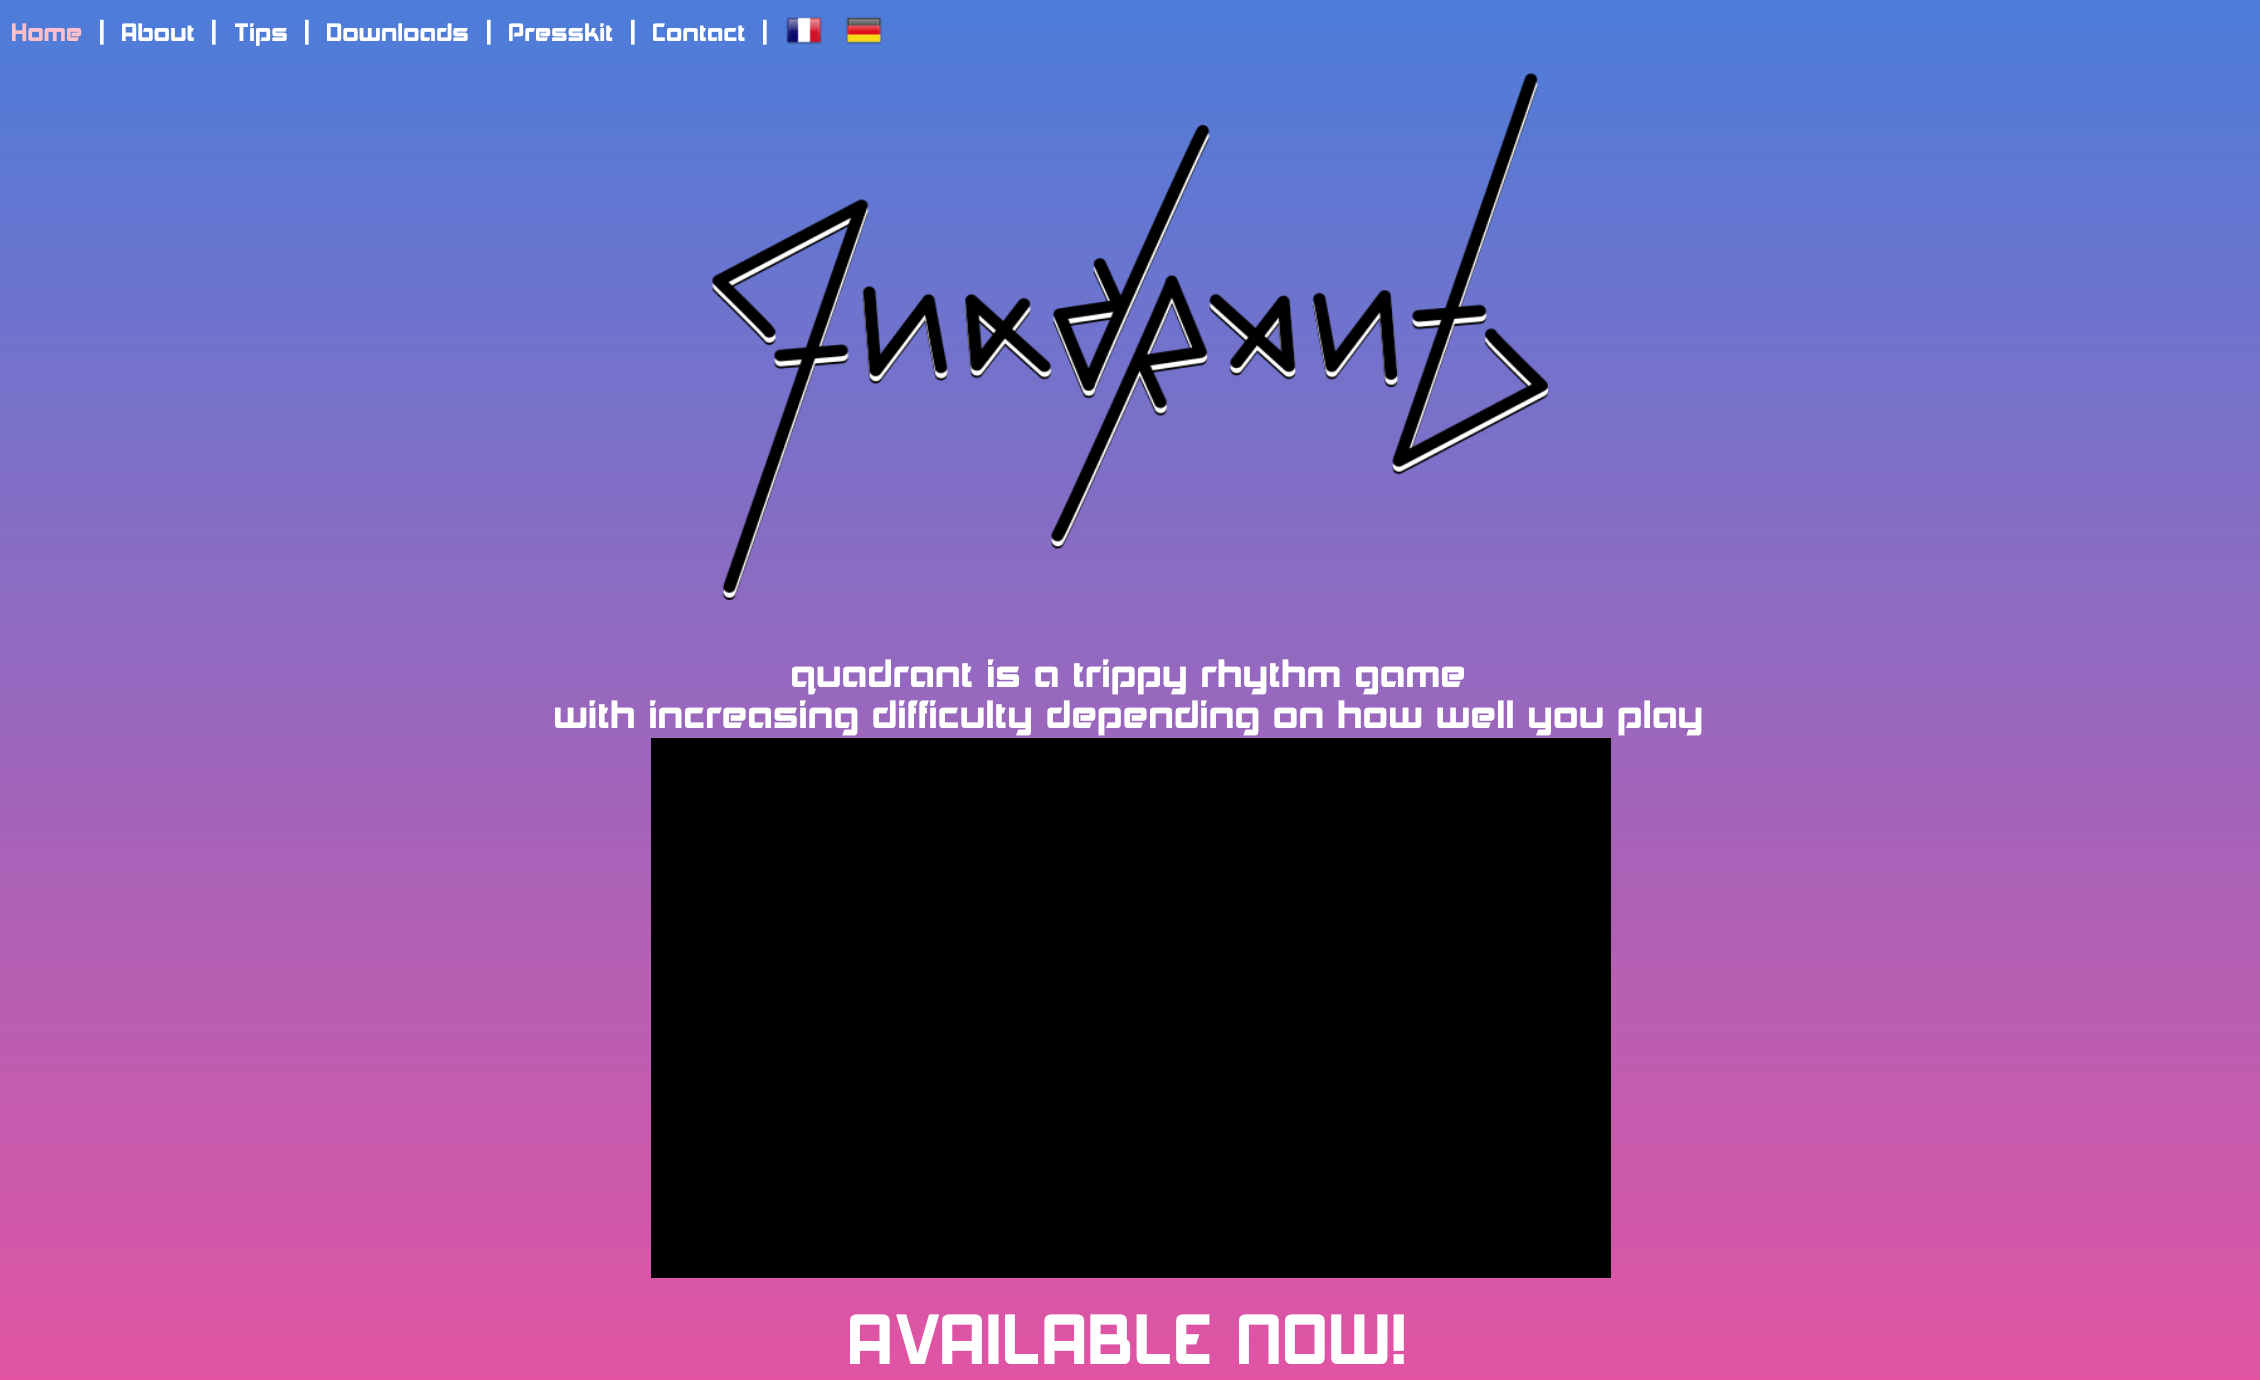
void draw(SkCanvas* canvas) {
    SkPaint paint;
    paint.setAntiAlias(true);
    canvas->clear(0xFFFFFFFF);
    {
        const SkColor colors[] = {0xFF4C7DDA, 0xFFE253A3};
        const float stops[] = {0, 1};
        const SkPoint ends[] = {{1130, 0}, {1130, 1380}};
        paint.setShader(SkGradientShader::MakeLinear(ends, colors, stops, 2, SkTileMode::kClamp));
        paint.setAlpha(255);
    }
    canvas->drawRect(SkRect::MakeXYWH(0, 0, 2260, 1380), paint);
    SkFont font1(fontMgr->matchFamilyStyle("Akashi", SkFontStyle::Normal()), 24);
    font1.setSubpixel(true);
    paint.setShader(nullptr);
    paint.setColor(0xFFFFC0CB);
    canvas->drawString("Home", 12, 41, font1, paint);
    paint.setColor(0xFFFFFFFF);
    canvas->drawString("|", 100, 41, font1, paint);
    canvas->drawString("About", 122, 41, font1, paint);
    canvas->drawString("|", 212, 41, font1, paint);
    canvas->drawString("Tips", 235, 41, font1, paint);
    canvas->drawString("|", 305, 41, font1, paint);
    canvas->drawString("Downloads", 327, 41, font1, paint);
    canvas->drawString("|", 487, 41, font1, paint);
    canvas->drawString("Presskit", 509, 41, font1, paint);
    canvas->drawString("|", 631, 41, font1, paint);
    canvas->drawString("Contact", 653, 41, font1, paint);
    canvas->drawString("|", 763, 41, font1, paint);
    canvas->drawImageRect(SkImages::DeferredFromEncodedData(SkData::MakeFromFileName("img1.png")), SkRect::MakeXYWH(786, 16, 36, 29), SkSamplingOptions());
    canvas->drawImageRect(SkImages::DeferredFromEncodedData(SkData::MakeFromFileName("img2.png")), SkRect::MakeXYWH(846, 16, 36, 29), SkSamplingOptions());
    canvas->drawImageRect(SkImages::DeferredFromEncodedData(SkData::MakeFromFileName("img3.png")), SkRect::MakeXYWH(712, 73, 836, 527), SkSamplingOptions());
    SkFont font2(fontMgr->matchFamilyStyle("Akashi", SkFontStyle::Normal()), 37.5f);
    font2.setSubpixel(true);
    canvas->drawString("quadrant is a trippy rhythm game", 792, 687, font2, paint);
    canvas->drawString("with increasing difficulty depending on how well you play", 555, 728, font2, paint);
    paint.setColor(0xFF000000);
    canvas->drawRect(SkRect::MakeXYWH(651, 738, 960, 540), paint);
    SkFont font3(fontMgr->matchFamilyStyle("Akashi", SkFontStyle::Normal()), 67.5f);
    font3.setSubpixel(true);
    paint.setColor(0xFFFFFFFF);
    canvas->drawString("AVAILABLE NOW!", 850, 1364, font3, paint);
}
